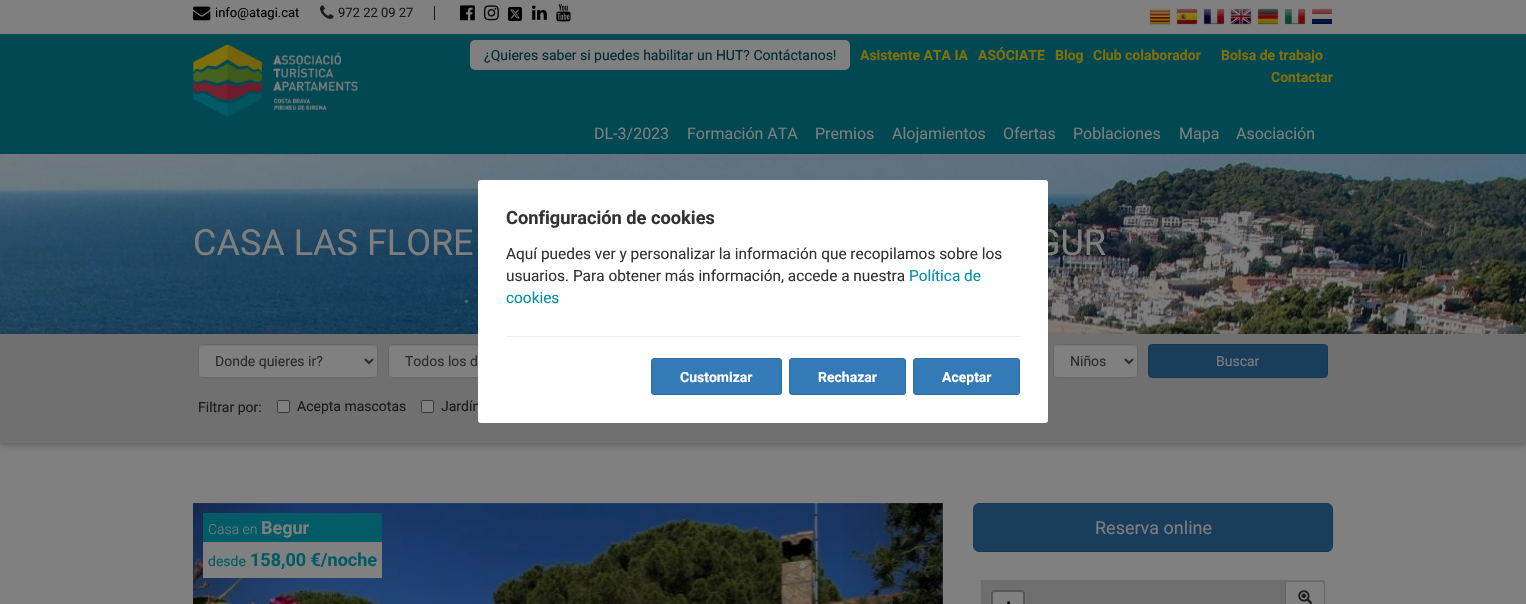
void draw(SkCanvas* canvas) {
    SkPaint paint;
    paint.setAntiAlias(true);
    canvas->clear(0xFF808080);
    canvas->drawImageRect(SkImages::DeferredFromEncodedData(SkData::MakeFromFileName("img1.png")), SkRect::MakeXYWH(193, 6, 18, 15), SkSamplingOptions());
    SkFont font1(fontMgr->matchFamilyStyle("Roboto", SkFontStyle::Normal()), 13);
    font1.setSubpixel(true);
    paint.setColor(0xFF000000);
    canvas->drawString("info@atagi.cat", 215, 17, font1, paint);
    canvas->drawImageRect(SkImages::DeferredFromEncodedData(SkData::MakeFromFileName("img2.png")), SkRect::MakeXYWH(320, 5, 14, 14), SkSamplingOptions());
    paint.setColor(0xFF1A1A1A);
    canvas->drawString("972 22 09 27", 338, 17, font1, paint);
    paint.setColor(0xFF151618);
    canvas->drawRect(SkRect::MakeXYWH(434, 6, 1, 14), paint);
    canvas->drawImageRect(SkImages::DeferredFromEncodedData(SkData::MakeFromFileName("img3.png")), SkRect::MakeXYWH(460, 5, 15, 16), SkSamplingOptions());
    canvas->drawImageRect(SkImages::DeferredFromEncodedData(SkData::MakeFromFileName("img4.png")), SkRect::MakeXYWH(484, 5, 15, 16), SkSamplingOptions());
    canvas->drawImageRect(SkImages::DeferredFromEncodedData(SkData::MakeFromFileName("img5.png")), SkRect::MakeXYWH(508, 7, 14, 14), SkSamplingOptions());
    canvas->drawImageRect(SkImages::DeferredFromEncodedData(SkData::MakeFromFileName("img6.png")), SkRect::MakeXYWH(532, 5, 15, 15), SkSamplingOptions());
    canvas->drawImageRect(SkImages::DeferredFromEncodedData(SkData::MakeFromFileName("img7.png")), SkRect::MakeXYWH(556, 4, 15, 18), SkSamplingOptions());
    canvas->drawImageRect(SkImages::DeferredFromEncodedData(SkData::MakeFromFileName("img8.png")), SkRect::MakeXYWH(1149, 8, 22, 17), SkSamplingOptions());
    canvas->drawImageRect(SkImages::DeferredFromEncodedData(SkData::MakeFromFileName("img9.png")), SkRect::MakeXYWH(1176, 8, 22, 17), SkSamplingOptions());
    canvas->drawImageRect(SkImages::DeferredFromEncodedData(SkData::MakeFromFileName("img10.png")), SkRect::MakeXYWH(1203, 8, 22, 17), SkSamplingOptions());
    canvas->drawImageRect(SkImages::DeferredFromEncodedData(SkData::MakeFromFileName("img11.png")), SkRect::MakeXYWH(1230, 8, 22, 17), SkSamplingOptions());
    canvas->drawImageRect(SkImages::DeferredFromEncodedData(SkData::MakeFromFileName("img12.png")), SkRect::MakeXYWH(1257, 8, 22, 17), SkSamplingOptions());
    canvas->drawImageRect(SkImages::DeferredFromEncodedData(SkData::MakeFromFileName("img13.png")), SkRect::MakeXYWH(1284, 8, 22, 17), SkSamplingOptions());
    canvas->drawImageRect(SkImages::DeferredFromEncodedData(SkData::MakeFromFileName("img14.png")), SkRect::MakeXYWH(1312, 9, 20, 15), SkSamplingOptions());
    paint.setColor(0xFF014852);
    canvas->drawRect(SkRect::MakeXYWH(0, 34, 1526, 120), paint);
    canvas->drawImageRect(SkImages::DeferredFromEncodedData(SkData::MakeFromFileName("img15.png")), SkRect::MakeXYWH(193, 44, 165, 73), SkSamplingOptions());
    paint.setColor(0xFF808080);
    canvas->drawRoundRect(SkRect::MakeXYWH(470, 40, 380, 30), 5, 5, paint);
    SkFont font2(fontMgr->matchFamilyStyle("Roboto", SkFontStyle::Normal()), 14);
    font2.setSubpixel(true);
    paint.setColor(0xFF002B32);
    canvas->drawString("¿Quieres saber si puedes habilitar un HUT? Contáctanos!", 484, 60, font2, paint);
    SkFont font3(fontMgr->matchFamilyStyle("Roboto", SkFontStyle::Bold()), 14);
    font3.setSubpixel(true);
    paint.setColor(0xFF806F0B);
    canvas->drawString("Asistente ATA IA", 860, 60, font3, paint);
    canvas->drawString("ASÓCIATE", 978, 60, font3, paint);
    canvas->drawString("Blog", 1055, 60, font3, paint);
    canvas->drawString("Club colaborador", 1093, 60, font3, paint);
    canvas->drawString("Bolsa de trabajo", 1221, 60, font3, paint);
    canvas->drawString("Contactar", 1271, 82, font3, paint);
    SkFont font4(fontMgr->matchFamilyStyle("Roboto", SkFontStyle::Normal()), 16);
    font4.setSubpixel(true);
    paint.setColor(0xFF7E7E7E);
    canvas->drawString("DL-3/2023", 594, 139, font4, paint);
    canvas->drawString("Formación ATA", 687, 139, font4, paint);
    canvas->drawString("Premios", 815, 139, font4, paint);
    canvas->drawString("Alojamientos", 892, 139, font4, paint);
    canvas->drawString("Ofertas", 1003, 139, font4, paint);
    canvas->drawString("Poblaciones", 1073, 139, font4, paint);
    canvas->drawString("Mapa", 1179, 139, font4, paint);
    canvas->drawString("Asociación", 1236, 139, font4, paint);
    paint.setColor(0x42000000);
    paint.setMaskFilter(SkMaskFilter::MakeBlur(kNormal_SkBlurStyle, 2.5f));
    canvas->drawRect(SkRect::MakeXYWH(0, 156, 1526, 180), paint);
    paint.setMaskFilter(nullptr);
    canvas->drawImageRect(SkImages::DeferredFromEncodedData(SkData::MakeFromFileName("img16.png")), SkRect::MakeXYWH(0, 154, 1526, 180), SkSamplingOptions());
    SkFont font5(fontMgr->matchFamilyStyle("Roboto", SkFontStyle::Normal()), 36);
    font5.setSubpixel(true);
    paint.setColor(0xFF7E7E7E);
    canvas->drawString("CASA LAS FLORE", 193, 255, font5, paint);
    canvas->drawString("GUR", 1036, 255, font5, paint);
    paint.setColor(0x42000000);
    paint.setMaskFilter(SkMaskFilter::MakeBlur(kNormal_SkBlurStyle, 2.5f));
    canvas->drawRect(SkRect::MakeXYWH(0, 336, 1526, 109), paint);
    paint.setMaskFilter(nullptr);
    paint.setColor(0xFF707070);
    canvas->drawRect(SkRect::MakeXYWH(0, 334, 1526, 109), paint);
    paint.setColor(0xFF808080);
    canvas->drawRoundRect(SkRect::MakeXYWH(198, 344, 180, 34), 4, 4, paint);
    paint.setColor(0xFF767676);
    canvas->drawPath(SkPathBuilder().moveTo(202, 346).lineTo(374, 346).cubicTo(376, 346, 377, 347, 377, 349).lineTo(377, 348).cubicTo(377, 346, 376, 345, 374, 345).lineTo(202, 345).cubicTo(200, 345, 199, 346, 199, 348).lineTo(199, 349).cubicTo(199, 347, 200, 346, 202, 346).close().detach(), paint);
    paint.setStyle(SkPaint::kStroke_Style);
    paint.setStrokeWidth(1);
    paint.setColor(0xFF666666);
    canvas->drawRoundRect(SkRect::MakeXYWH(198.5f, 344.5f, 179, 33), 3.5f, 3.5f, paint);
    paint.setStrokeWidth(2);
    paint.setColor(0xFF2B2B2B);
    canvas->drawPath(SkPathBuilder().moveTo(365, 359).lineTo(369, 363).lineTo(373, 359).detach(), paint);
    paint.setStyle(SkPaint::kFill_Style);
    canvas->drawString("Donde quieres ir?", 215, 366, font2, paint);
    paint.setColor(0xFF808080);
    canvas->drawRoundRect(SkRect::MakeXYWH(388, 344, 180, 34), 4, 4, paint);
    paint.setColor(0xFF767676);
    canvas->drawPath(SkPathBuilder().moveTo(392, 346).lineTo(564, 346).cubicTo(566, 346, 567, 347, 567, 349).lineTo(567, 348).cubicTo(567, 346, 566, 345, 564, 345).lineTo(392, 345).cubicTo(390, 345, 389, 346, 389, 348).lineTo(389, 349).cubicTo(389, 347, 390, 346, 392, 346).close().detach(), paint);
    paint.setStyle(SkPaint::kStroke_Style);
    paint.setStrokeWidth(1);
    paint.setColor(0xFF666666);
    canvas->drawRoundRect(SkRect::MakeXYWH(388.5f, 344.5f, 179, 33), 3.5f, 3.5f, paint);
    paint.setStyle(SkPaint::kFill_Style);
    paint.setColor(0xFF2B2B2B);
    canvas->drawString("Todos los d", 405, 366, font2, paint);
    paint.setColor(0xFF808080);
    canvas->drawRoundRect(SkRect::MakeXYWH(1053, 344, 85, 34), 4, 4, paint);
    paint.setColor(0xFF767676);
    canvas->drawPath(SkPathBuilder().moveTo(1057, 346).lineTo(1134, 346).cubicTo(1136, 346, 1137, 347, 1137, 349).cubicTo(1137, 342, 1125, 345, 1121, 345).lineTo(1070, 345).cubicTo(1066, 345, 1054, 342, 1054, 349).cubicTo(1054, 347, 1055, 346, 1057, 346).close().detach(), paint);
    paint.setStyle(SkPaint::kStroke_Style);
    paint.setColor(0xFF666666);
    canvas->drawRoundRect(SkRect::MakeXYWH(1053.5f, 344.5f, 84, 33), 3.5f, 3.5f, paint);
    paint.setStrokeWidth(2);
    paint.setColor(0xFF2B2B2B);
    canvas->drawPath(SkPathBuilder().moveTo(1125, 359).lineTo(1129, 363).lineTo(1133, 359).detach(), paint);
    paint.setStyle(SkPaint::kFill_Style);
    canvas->drawString("Niños", 1070, 366, font2, paint);
    paint.setColor(0xFF1A3D5C);
    canvas->drawRoundRect(SkRect::MakeXYWH(1148.5f, 344.5f, 179, 33), 3.5f, 3.5f, paint);
    paint.setStyle(SkPaint::kStroke_Style);
    paint.setStrokeWidth(1);
    paint.setColor(0xFF173752);
    canvas->drawRoundRect(SkRect::MakeXYWH(1148.5f, 344.5f, 179, 33), 3.5f, 3.5f, paint);
    paint.setStyle(SkPaint::kFill_Style);
    paint.setColor(0xFF7E7E7E);
    canvas->drawString("Buscar", 1216, 366, font2, paint);
    paint.setColor(0xFF1A1A1A);
    canvas->drawString("Filtrar por:", 198, 412, font2, paint);
    paint.setColor(0xFF808080);
    canvas->drawRoundRect(SkRect::MakeXYWH(277.5f, 400.5f, 12, 12), 1.5f, 1.5f, paint);
    paint.setStyle(SkPaint::kStroke_Style);
    paint.setColor(0xFF3B3B3B);
    canvas->drawRoundRect(SkRect::MakeXYWH(277.5f, 400.5f, 12, 12), 1.5f, 1.5f, paint);
    paint.setStyle(SkPaint::kFill_Style);
    paint.setColor(0xFF1A1A1A);
    canvas->drawString("Acepta mascotas", 297, 411, font2, paint);
    paint.setColor(0xFF808080);
    canvas->drawRoundRect(SkRect::MakeXYWH(421.5f, 400.5f, 12, 12), 1.5f, 1.5f, paint);
    paint.setStyle(SkPaint::kStroke_Style);
    paint.setColor(0xFF3B3B3B);
    canvas->drawRoundRect(SkRect::MakeXYWH(421.5f, 400.5f, 12, 12), 1.5f, 1.5f, paint);
    paint.setStyle(SkPaint::kFill_Style);
    paint.setColor(0xFF1A1A1A);
    canvas->drawString("Jardín", 441, 411, font2, paint);
    canvas->drawImageRect(SkImages::DeferredFromEncodedData(SkData::MakeFromFileName("img17.png")), SkRect::MakeXYWH(193, 503, 750, 101), SkSamplingOptions());
    {
        const SkColor colors[] = {0x40000000, 0x00000000};
        const float stops[] = {0, 1};
        const SkPoint ends[] = {{193, 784}, {306, 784}};
        paint.setShader(SkGradientShader::MakeLinear(ends, colors, stops, 2, SkTileMode::kClamp));
        paint.setAlpha(255);
    }
    canvas->drawRect(SkRect::MakeXYWH(193, 503, 103, 101), paint);
    {
        const SkColor colors[] = {0x00000000, 0x40000000};
        const float stops[] = {0, 1};
        const SkPoint ends[] = {{831, 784}, {943, 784}};
        paint.setShader(SkGradientShader::MakeLinear(ends, colors, stops, 2, SkTileMode::kClamp));
        paint.setAlpha(255);
    }
    canvas->drawRect(SkRect::MakeXYWH(842, 503, 101, 101), paint);
    paint.setShader(nullptr);
    paint.setColor(0xFF005B67);
    canvas->drawRect(SkRect::MakeXYWH(203, 513, 179, 29), paint);
    SkFont font6(fontMgr->matchFamilyStyle("Roboto", SkFontStyle(300, SkFontStyle::kNormal_Width, SkFontStyle::kUpright_Slant)), 14);
    font6.setSubpixel(true);
    paint.setColor(0xFF7E7E7E);
    canvas->drawString("Casa en", 208, 534, font6, paint);
    SkFont font7(fontMgr->matchFamilyStyle("Roboto", SkFontStyle::Bold()), 18);
    font7.setSubpixel(true);
    canvas->drawString("Begur", 261, 534, font7, paint);
    paint.setColor(0xFF808080);
    canvas->drawRect(SkRect::MakeXYWH(203, 542, 179, 36), paint);
    paint.setColor(0xFF005B67);
    canvas->drawString("desde", 208, 566, font2, paint);
    canvas->drawString("158,00 €/noche", 250, 566, font7, paint);
    paint.setColor(0xFF1A3D5C);
    canvas->drawRoundRect(SkRect::MakeXYWH(973.5f, 503.5f, 359, 48), 5.5f, 5.5f, paint);
    paint.setStyle(SkPaint::kStroke_Style);
    paint.setColor(0xFF173752);
    canvas->drawRoundRect(SkRect::MakeXYWH(973.5f, 503.5f, 359, 48), 5.5f, 5.5f, paint);
    SkFont font8(fontMgr->matchFamilyStyle("Roboto", SkFontStyle::Normal()), 18);
    font8.setSubpixel(true);
    paint.setStyle(SkPaint::kFill_Style);
    paint.setColor(0xFF7E7E7E);
    canvas->drawString("Reserva online", 1095, 534, font8, paint);
    canvas->drawImageRect(SkImages::DeferredFromEncodedData(SkData::MakeFromFileName("img18.png")), SkRect::MakeXYWH(981, 580, 344, 24), SkSamplingOptions());
    paint.setColor(0xFF808080);
    canvas->drawRoundRect(SkRect::MakeXYWH(1285.5f, 581.5f, 39, 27), 3.5f, 3.5f, paint);
    paint.setStyle(SkPaint::kStroke_Style);
    paint.setColor(0xFF666666);
    canvas->drawRoundRect(SkRect::MakeXYWH(1285.5f, 581.5f, 39, 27), 3.5f, 3.5f, paint);
    canvas->drawImageRect(SkImages::DeferredFromEncodedData(SkData::MakeFromFileName("img19.png")), SkRect::MakeXYWH(1298, 590, 15, 14), SkSamplingOptions());
    paint.setStyle(SkPaint::kFill_Style);
    paint.setColor(0xFFFFFFFF);
    canvas->drawRoundRect(SkRect::MakeXYWH(478, 180, 570, 243), 3, 3, paint);
    SkFont font9(fontMgr->matchFamilyStyle("Roboto", SkFontStyle::Bold()), 18.25f);
    font9.setSubpixel(true);
    paint.setColor(0xFF333333);
    canvas->drawString("Configuración de cookies", 506, 224, font9, paint);
    paint.setColor(0xFFEEEEEE);
    canvas->drawRect(SkRect::MakeXYWH(506, 336, 514, 1), paint);
    SkFont font10(fontMgr->matchFamilyStyle("Roboto", SkFontStyle::Normal()), 15.4f);
    font10.setSubpixel(true);
    paint.setColor(0xFF333333);
    canvas->drawString("Aquí puedes ver y personalizar la información que recopilamos sobre los", 506, 259, font10, paint);
    canvas->drawString("usuarios. Para obtener más información, accede a nuestra", 506, 281, font10, paint);
    paint.setColor(0xFF018FA3);
    canvas->drawString("Política de", 909, 281, font10, paint);
    canvas->drawString("cookies", 506, 303, font10, paint);
    paint.setColor(0xFF337AB7);
    canvas->drawRoundRect(SkRect::MakeXYWH(651.5f, 358.5f, 130, 36), 2.5f, 2.5f, paint);
    paint.setStyle(SkPaint::kStroke_Style);
    paint.setColor(0xFF2E6DA4);
    canvas->drawRoundRect(SkRect::MakeXYWH(651.5f, 358.5f, 130, 36), 2.5f, 2.5f, paint);
    paint.setStyle(SkPaint::kFill_Style);
    paint.setColor(0xFFFFFFFF);
    canvas->drawString("Customizar", 680, 382, font3, paint);
    paint.setColor(0xFF337AB7);
    canvas->drawRoundRect(SkRect::MakeXYWH(789.5f, 358.5f, 116, 36), 2.5f, 2.5f, paint);
    paint.setStyle(SkPaint::kStroke_Style);
    paint.setColor(0xFF2E6DA4);
    canvas->drawRoundRect(SkRect::MakeXYWH(789.5f, 358.5f, 116, 36), 2.5f, 2.5f, paint);
    paint.setStyle(SkPaint::kFill_Style);
    paint.setColor(0xFFFFFFFF);
    canvas->drawString("Rechazar", 818, 382, font3, paint);
    paint.setColor(0xFF337AB7);
    canvas->drawRoundRect(SkRect::MakeXYWH(913.5f, 358.5f, 106, 36), 2.5f, 2.5f, paint);
    paint.setStyle(SkPaint::kStroke_Style);
    paint.setColor(0xFF2E6DA4);
    canvas->drawRoundRect(SkRect::MakeXYWH(913.5f, 358.5f, 106, 36), 2.5f, 2.5f, paint);
    paint.setStyle(SkPaint::kFill_Style);
    paint.setColor(0xFFFFFFFF);
    canvas->drawString("Aceptar", 942, 382, font3, paint);
}
